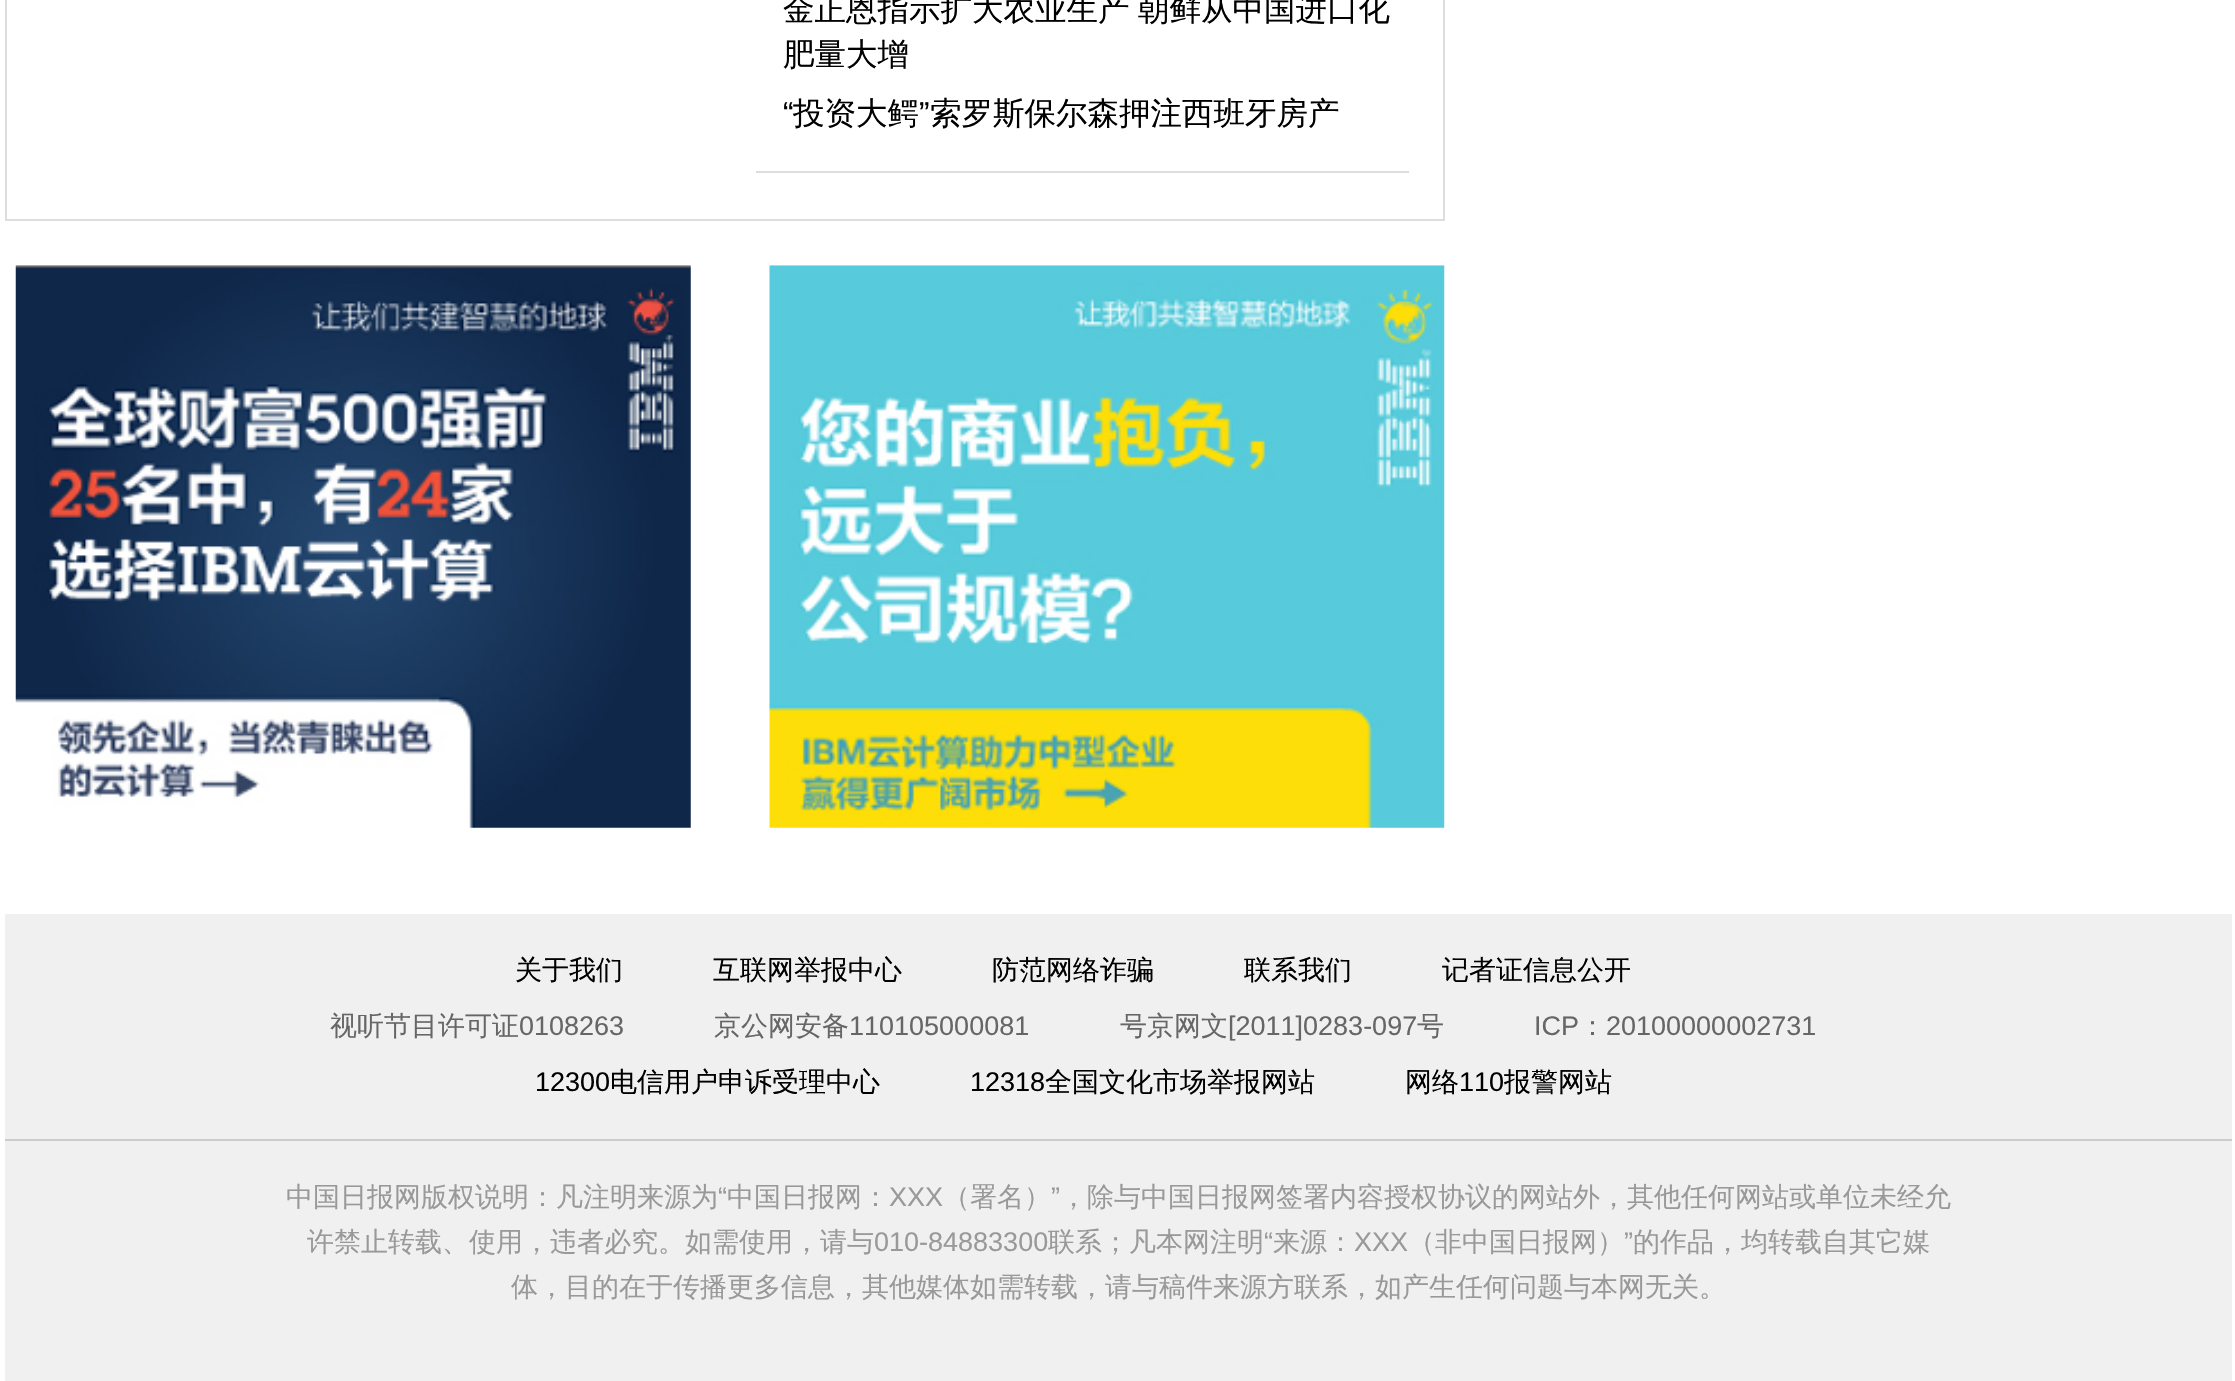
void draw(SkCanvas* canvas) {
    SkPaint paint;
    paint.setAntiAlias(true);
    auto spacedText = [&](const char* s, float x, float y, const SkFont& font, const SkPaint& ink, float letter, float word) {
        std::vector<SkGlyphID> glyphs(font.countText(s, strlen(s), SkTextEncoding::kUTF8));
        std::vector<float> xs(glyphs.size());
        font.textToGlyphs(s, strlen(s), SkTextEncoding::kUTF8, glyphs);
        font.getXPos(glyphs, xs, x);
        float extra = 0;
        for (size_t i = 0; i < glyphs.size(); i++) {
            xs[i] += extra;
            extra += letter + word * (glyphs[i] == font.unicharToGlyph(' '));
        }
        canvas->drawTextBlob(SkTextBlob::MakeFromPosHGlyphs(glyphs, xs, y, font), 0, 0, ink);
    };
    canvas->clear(0xFFFFFFFF);
    paint.setStyle(SkPaint::kStroke_Style);
    paint.setStrokeWidth(2);
    paint.setColor(0xFFDCDDDD);
    canvas->drawRect(SkRect::MakeXYWH(6, -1, 1438, 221), paint);
    paint.setStyle(SkPaint::kFill_Style);
    canvas->drawRect(SkRect::MakeXYWH(756, 171, 653, 2), paint);
    SkFont font1(fontMgr->matchFamilyStyle("WenQuanYi Zen Hei", SkFontStyle(500, SkFontStyle::kNormal_Width, SkFontStyle::kUpright_Slant)), 31.5f);
    font1.setSubpixel(true);
    paint.setColor(0xFF000000);
    spacedText("金正恩指示扩大农业生产 朝鲜从中国进口化", 783, 20, font1, paint, 0, -1);
    canvas->drawString("肥量大增", 783, 65, font1, paint);
    SkFont font2(fontMgr->matchFamilyStyle("Liberation Sans", SkFontStyle::Normal()), 31.5f);
    font2.setSubpixel(true);
    canvas->drawString("“", 783, 124, font2, paint);
    canvas->drawString("投资大鳄", 793, 124, font1, paint);
    canvas->drawString("”", 919, 124, font2, paint);
    canvas->drawString("索罗斯保尔森押注西班牙房产", 930, 124, font1, paint);
    canvas->drawImageRect(SkImages::DeferredFromEncodedData(SkData::MakeFromFileName("img1.png")), SkRect::MakeXYWH(15, 265, 676, 563), SkSamplingOptions());
    canvas->drawImageRect(SkImages::DeferredFromEncodedData(SkData::MakeFromFileName("img2.png")), SkRect::MakeXYWH(769, 265, 676, 563), SkSamplingOptions());
    paint.setColor(0xFFF0F0F0);
    canvas->drawRect(SkRect::MakeXYWH(5, 914, 2227, 467), paint);
    paint.setColor(0xFFCCCCCC);
    canvas->drawRect(SkRect::MakeXYWH(5, 1139, 2227, 2), paint);
    SkFont font3(fontMgr->matchFamilyStyle("WenQuanYi Zen Hei", SkFontStyle(500, SkFontStyle::kNormal_Width, SkFontStyle::kUpright_Slant)), 27);
    font3.setSubpixel(true);
    paint.setColor(0xFF000000);
    canvas->drawString("关于我们", 515, 979, font3, paint);
    canvas->drawString("互联网举报中心", 713, 979, font3, paint);
    canvas->drawString("防范网络诈骗", 992, 979, font3, paint);
    canvas->drawString("联系我们", 1244, 979, font3, paint);
    canvas->drawString("记者证信息公开", 1442, 979, font3, paint);
    paint.setColor(0xFF666666);
    canvas->drawString("视听节目许可证", 330, 1035, font3, paint);
    SkFont font4(fontMgr->matchFamilyStyle("Liberation Sans", SkFontStyle::Normal()), 27);
    font4.setSubpixel(true);
    canvas->drawString("0108263", 519, 1035, font4, paint);
    canvas->drawString("京公网安备", 714, 1035, font3, paint);
    canvas->drawString("110105000081", 849, 1035, font4, paint);
    canvas->drawString("号京网文", 1120, 1035, font3, paint);
    canvas->drawString("[2011]0283-097", 1228, 1035, font4, paint);
    canvas->drawString("号", 1417, 1035, font3, paint);
    canvas->drawString("ICP", 1534, 1035, font4, paint);
    canvas->drawString("：", 1579, 1035, font3, paint);
    canvas->drawString("20100000002731", 1606, 1035, font4, paint);
    paint.setColor(0xFF000000);
    canvas->drawString("12300", 535, 1091, font4, paint);
    canvas->drawString("电信用户申诉受理中心", 610, 1091, font3, paint);
    canvas->drawString("12318", 970, 1091, font4, paint);
    canvas->drawString("全国文化市场举报网站", 1045, 1091, font3, paint);
    canvas->drawString("网络", 1405, 1091, font3, paint);
    canvas->drawString("110", 1459, 1091, font4, paint);
    canvas->drawString("报警网站", 1504, 1091, font3, paint);
    paint.setColor(0xFF999999);
    canvas->drawString("中国日报网版权说明：凡注明来源为", 286, 1206, font3, paint);
    canvas->drawString("“", 718, 1206, font4, paint);
    canvas->drawString("中国日报网：", 727, 1206, font3, paint);
    canvas->drawString("XXX", 889, 1206, font4, paint);
    canvas->drawString("（署名）", 943, 1206, font3, paint);
    canvas->drawString("”", 1051, 1206, font4, paint);
    canvas->drawString("，除与中国日报网签署内容授权协议的网站外，其他任何网站或单位未经允", 1060, 1206, font3, paint);
    canvas->drawString("许禁止转载、使用，违者必究。如需使用，请与", 307, 1251, font3, paint);
    canvas->drawString("010-84883300", 874, 1251, font4, paint);
    canvas->drawString("联系；凡本网注明", 1048, 1251, font3, paint);
    canvas->drawString("“", 1264, 1251, font4, paint);
    canvas->drawString("来源：", 1273, 1251, font3, paint);
    canvas->drawString("XXX", 1354, 1251, font4, paint);
    canvas->drawString("（非中国日报网）", 1408, 1251, font3, paint);
    canvas->drawString("”", 1624, 1251, font4, paint);
    canvas->drawString("的作品，均转载自其它媒", 1633, 1251, font3, paint);
    canvas->drawString("体，目的在于传播更多信息，其他媒体如需转载，请与稿件来源方联系，如产生任何问题与本网无关。", 511, 1296, font3, paint);
}
